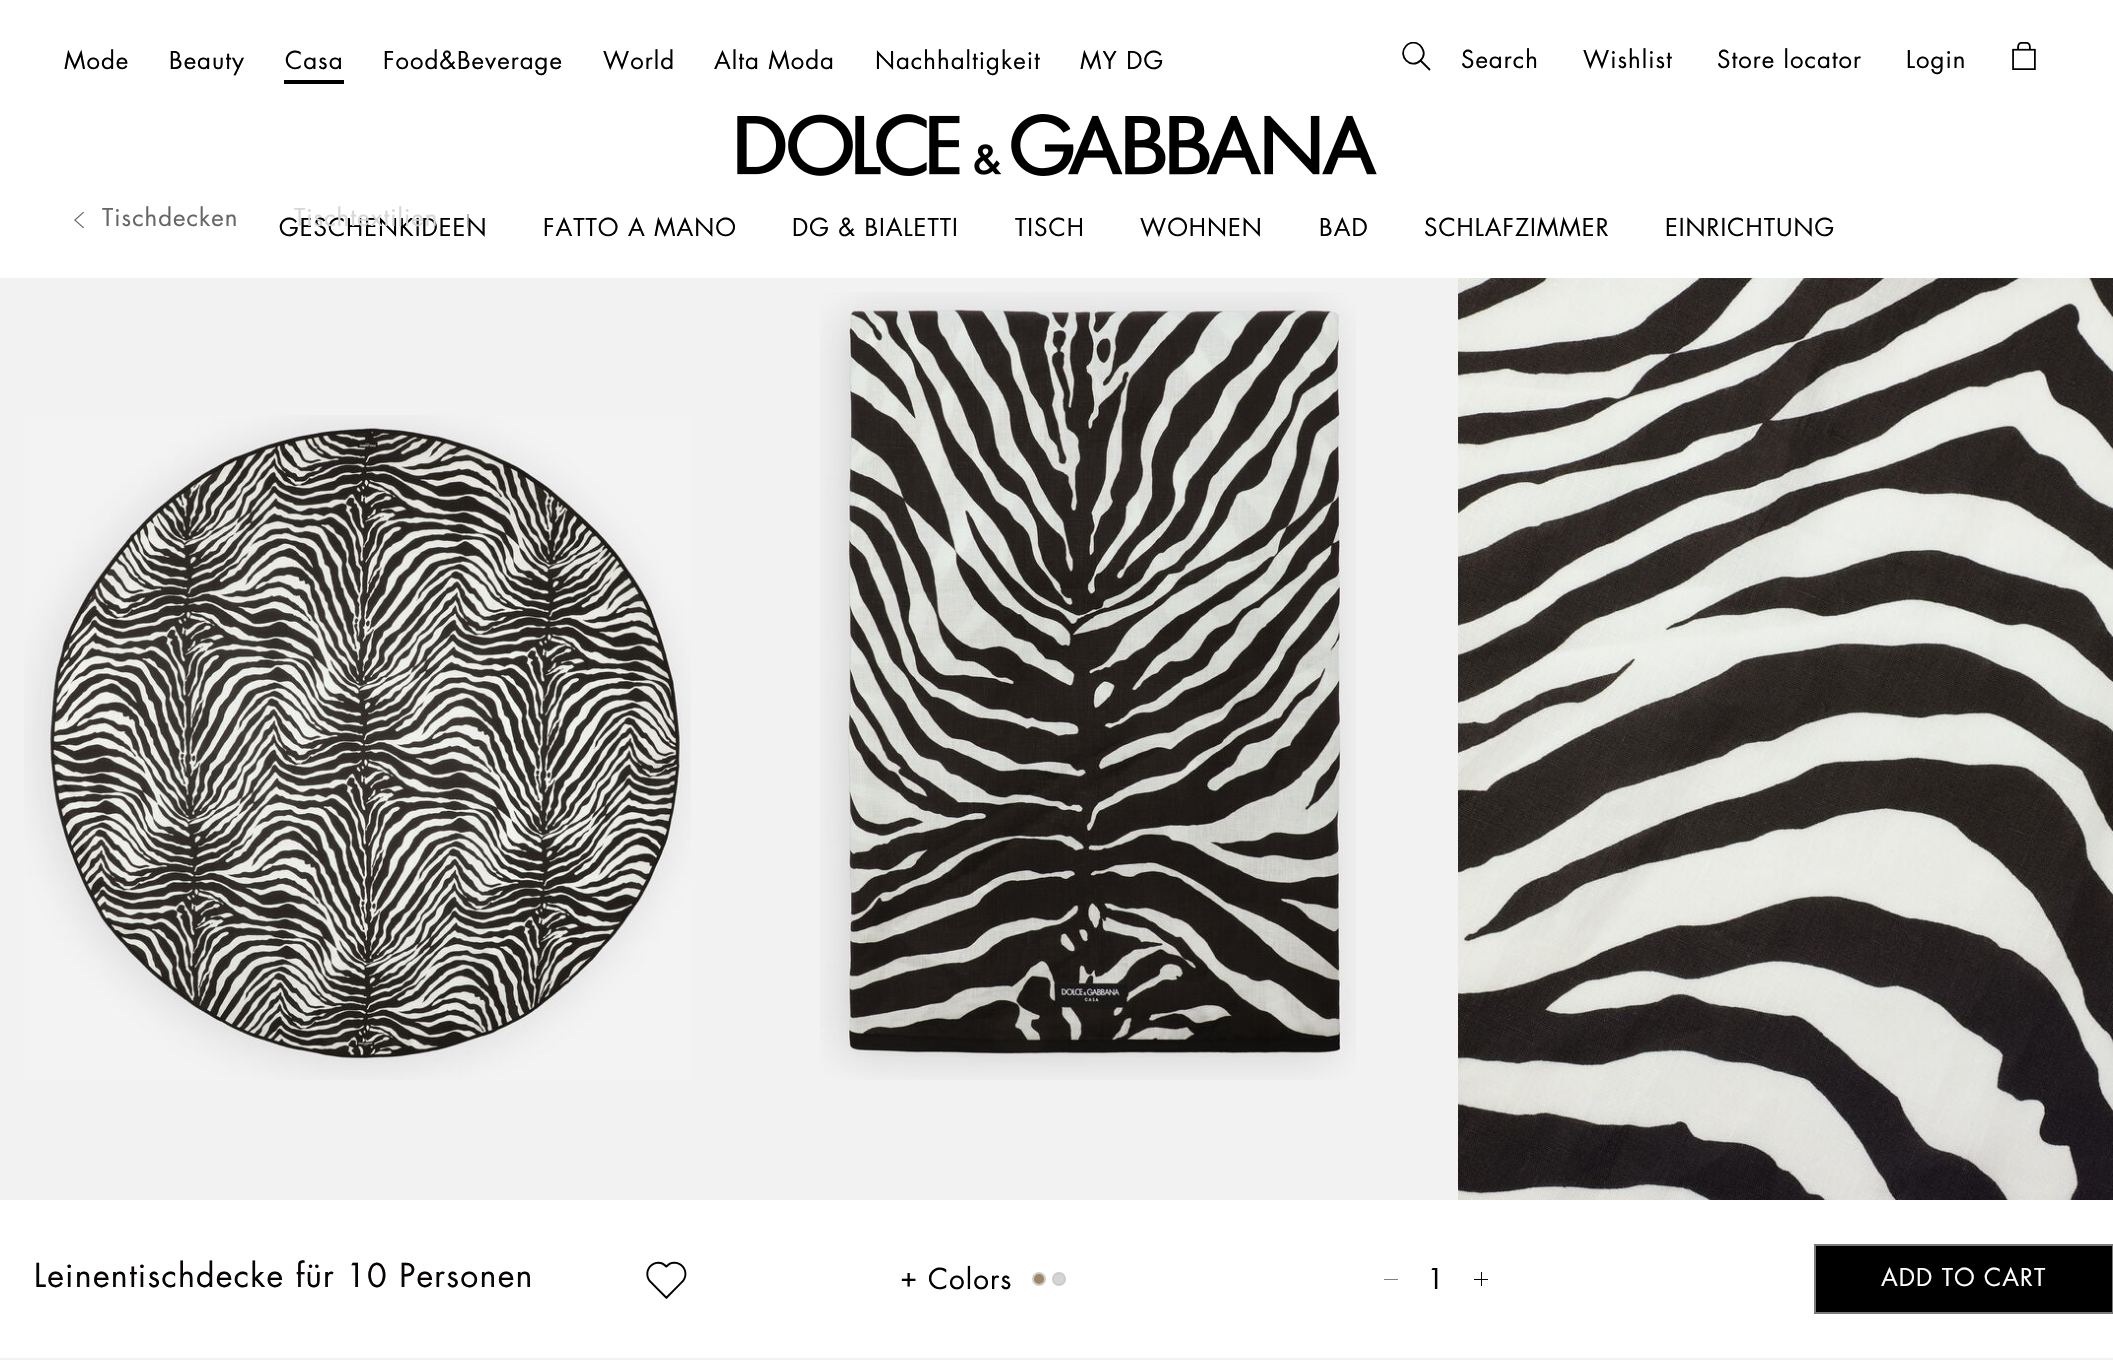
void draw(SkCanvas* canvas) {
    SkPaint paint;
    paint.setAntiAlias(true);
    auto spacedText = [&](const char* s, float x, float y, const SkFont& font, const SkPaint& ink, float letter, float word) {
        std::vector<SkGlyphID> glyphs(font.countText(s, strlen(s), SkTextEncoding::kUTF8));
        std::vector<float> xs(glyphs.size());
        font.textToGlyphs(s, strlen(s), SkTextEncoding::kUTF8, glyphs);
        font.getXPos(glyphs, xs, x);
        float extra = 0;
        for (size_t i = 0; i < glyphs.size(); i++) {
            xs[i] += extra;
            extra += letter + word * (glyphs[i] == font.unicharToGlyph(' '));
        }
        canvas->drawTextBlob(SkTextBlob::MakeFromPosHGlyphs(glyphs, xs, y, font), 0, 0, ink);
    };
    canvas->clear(0xFFF2F2F2);
    paint.setColor(0xFFFFFFFF);
    canvas->drawRect(SkRect::MakeXYWH(0, 0, 2113, 278), paint);
    SkFont font1(fontMgr->matchFamilyStyle("Futura", SkFontStyle::Normal()), 24);
    font1.setSubpixel(true);
    paint.setColor(0xFF000000);
    spacedText("Mode", 64, 69, font1, paint, 1, 0);
    spacedText("Beauty", 169, 69, font1, paint, 1, 0);
    spacedText("Casa", 285, 69, font1, paint, 1, 0);
    canvas->drawRect(SkRect::MakeXYWH(284, 80, 60, 4), paint);
    spacedText("Food&Beverage", 383, 69, font1, paint, 1, 0);
    spacedText("World", 603, 69, font1, paint, 1, 0);
    spacedText("Alta Moda", 714, 69, font1, paint, 1, 0);
    spacedText("Nachhaltigkeit", 875, 69, font1, paint, 1, 0);
    spacedText("MY DG", 1080, 69, font1, paint, 1, 0);
    canvas->save();
    canvas->clipRect(SkRect::MakeXYWH(1402, 42, 36, 36));
    paint.setStyle(SkPaint::kStroke_Style);
    paint.setStrokeWidth(1.8f);
    canvas->drawPath(SkPathBuilder().moveTo(1421, 61).lineTo(1430, 70).moveTo(1420.5f, 60.5f).cubicTo(1428, 53, 1420.5f, 40.5f, 1410.5f, 43).cubicTo(1409, 43.5f, 1407, 44.5f, 1406, 46).cubicTo(1397, 56, 1411, 70, 1420.5f, 60.5f).close().detach(), paint);
    canvas->restore();
    paint.setStyle(SkPaint::kFill_Style);
    spacedText("Search", 1461, 68, font1, paint, 1, 0);
    spacedText("Wishlist", 1583, 68, font1, paint, 1, 0);
    spacedText("Store locator", 1717, 68, font1, paint, 1, 0);
    spacedText("Login", 1906, 68, font1, paint, 1, 0);
    canvas->drawImageRect(SkImages::DeferredFromEncodedData(SkData::MakeFromFileName("img1.png")), SkRect::MakeXYWH(2012, 42, 24, 28), SkSamplingOptions());
    canvas->drawImageRect(SkImages::DeferredFromEncodedData(SkData::MakeFromFileName("img2.png")), SkRect::MakeXYWH(737, 114, 640, 62), SkSamplingOptions());
    spacedText("GESCHENKIDEEN", 279, 236, font1, paint, 1, 0);
    spacedText("FATTO A MANO", 543, 236, font1, paint, 1, 0);
    spacedText("DG & BIALETTI", 792, 236, font1, paint, 1, 0);
    spacedText("TISCH", 1015, 236, font1, paint, 1, 0);
    spacedText("WOHNEN", 1140, 236, font1, paint, 1, 0);
    spacedText("BAD", 1319, 236, font1, paint, 1, 0);
    spacedText("SCHLAFZIMMER", 1424, 236, font1, paint, 1, 0);
    spacedText("EINRICHTUNG", 1665, 236, font1, paint, 1, 0);
    canvas->drawImageRect(SkImages::DeferredFromEncodedData(SkData::MakeFromFileName("img3.png")), SkRect::MakeXYWH(74, 211, 10, 18), SkSamplingOptions());
    paint.setColor(0xFF666666);
    spacedText("Tischdecken", 102, 226, font1, paint, 1, 0);
    paint.setColor(0xFFD7D7D7);
    spacedText("Tischtextilien", 294, 226, font1, paint, 1, 0);
    SkFont font2(fontMgr->matchFamilyStyle("Futura", SkFontStyle::Normal()), 14);
    font2.setSubpixel(true);
    paint.setColor(0xFF898989);
    spacedText("|", 464, 225, font2, paint, 1, 0);
    canvas->drawImageRect(SkImages::DeferredFromEncodedData(SkData::MakeFromFileName("img4.png")), SkRect::MakeXYWH(24, 415, 667, 665), SkSamplingOptions());
    canvas->drawImageRect(SkImages::DeferredFromEncodedData(SkData::MakeFromFileName("img5.png")), SkRect::MakeXYWH(820, 292, 536, 788), SkSamplingOptions());
    canvas->drawImageRect(SkImages::DeferredFromEncodedData(SkData::MakeFromFileName("img6.png")), SkRect::MakeXYWH(1458, 278, 655, 922), SkSamplingOptions());
    paint.setColor(0xFFFFFFFF);
    canvas->drawRect(SkRect::MakeXYWH(0, 1200, 2113, 158), paint);
    SkFont font3(fontMgr->matchFamilyStyle("Futura", SkFontStyle::Normal()), 32);
    font3.setSubpixel(true);
    paint.setColor(0xFF080404);
    spacedText("Leinentischdecke für 10 Personen", 34, 1287, font3, paint, 1.25f, 0);
    canvas->drawImageRect(SkImages::DeferredFromEncodedData(SkData::MakeFromFileName("img7.png")), SkRect::MakeXYWH(646, 1261, 41, 38), SkSamplingOptions());
    SkFont font4(fontMgr->matchFamilyStyle("Futura", SkFontStyle::Normal()), 28);
    font4.setSubpixel(true);
    paint.setColor(0xFF000000);
    spacedText("+", 900, 1287, font4, paint, 1, 0);
    spacedText("Colors", 928, 1289, font4, paint, 1, 0);
    paint.setColor(0xFF9F8669);
    canvas->drawCircle(1039, 1279, 6, paint);
    paint.setStyle(SkPaint::kStroke_Style);
    paint.setStrokeWidth(2);
    paint.setColor(0xFFCCCCCC);
    canvas->drawCircle(1039, 1279, 6, paint);
    paint.setStyle(SkPaint::kFill_Style);
    paint.setColor(0xFFD5D5D5);
    canvas->drawCircle(1059, 1279, 6, paint);
    paint.setStyle(SkPaint::kStroke_Style);
    paint.setColor(0xFFCCCCCC);
    canvas->drawCircle(1059, 1279, 6, paint);
    paint.setStyle(SkPaint::kFill_Style);
    paint.setColor(0xFF808080);
    canvas->drawRect(SkRect::MakeXYWH(1384, 1279, 14, 1), paint);
    paint.setColor(0xFF000000);
    spacedText("1", 1427, 1289, font4, paint, 1, 0);
    canvas->drawRect(SkRect::MakeXYWH(1481, 1272, 1, 14), paint);
    canvas->drawRect(SkRect::MakeXYWH(1474, 1279, 14, 1), paint);
    canvas->drawRect(SkRect::MakeXYWH(1815, 1245, 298, 68), paint);
    paint.setStyle(SkPaint::kStroke_Style);
    paint.setColor(0xFF7A7A7A);
    canvas->drawRect(SkRect::MakeXYWH(1815, 1245, 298, 68), paint);
    paint.setStyle(SkPaint::kFill_Style);
    paint.setColor(0xFFFFFFFF);
    spacedText("ADD TO CART", 1881, 1286, font1, paint, 1, 0);
}
